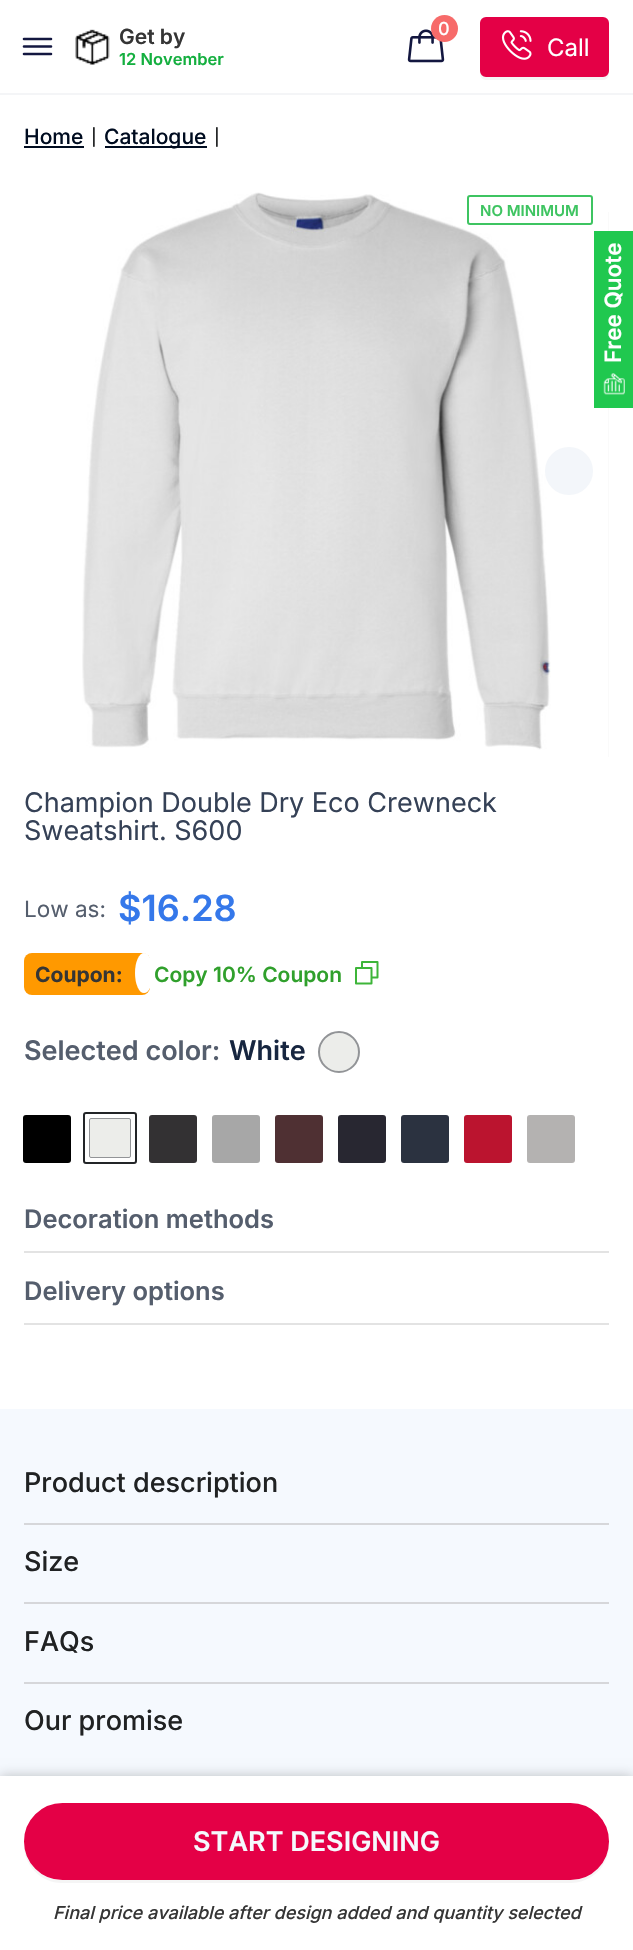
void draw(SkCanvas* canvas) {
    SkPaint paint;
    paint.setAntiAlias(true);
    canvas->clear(0xFFFFFFFF);
    paint.setColor(0xFFF4F5F7);
    canvas->drawRect(SkRect::MakeXYWH(0, 93, 633, 2), paint);
    paint.setStyle(SkPaint::kStroke_Style);
    paint.setStrokeWidth(2.6f);
    paint.setStrokeCap(SkPaint::kRound_Cap);
    paint.setColor(0xFF131740);
    canvas->drawPath(SkPathBuilder().moveTo(24, 39).lineTo(51, 39).moveTo(24, 46.5f).lineTo(51, 46.5f).moveTo(24, 54).lineTo(51, 54).detach(), paint);
    canvas->drawImageRect(SkImages::DeferredFromEncodedData(SkData::MakeFromFileName("img1.png")), SkRect::MakeXYWH(75, 29, 35, 36), SkSamplingOptions());
    SkFont font1(fontMgr->matchFamilyStyle("Inter", SkFontStyle(600, SkFontStyle::kNormal_Width, SkFontStyle::kUpright_Slant)), 21);
    font1.setSubpixel(true);
    paint.setStyle(SkPaint::kFill_Style);
    paint.setColor(0xFF353535);
    canvas->drawString("Get by", 119, 44, font1, paint);
    SkFont font2(fontMgr->matchFamilyStyle("Inter", SkFontStyle(600, SkFontStyle::kNormal_Width, SkFontStyle::kUpright_Slant)), 16.5f);
    font2.setSubpixel(true);
    paint.setColor(0xFF14AF3F);
    canvas->drawString("12 November", 119, 65, font2, paint);
    canvas->drawImageRect(SkImages::DeferredFromEncodedData(SkData::MakeFromFileName("img2.png")), SkRect::MakeXYWH(407, 29, 38, 34), SkSamplingOptions());
    paint.setColor(0xFFF76B6A);
    canvas->drawCircle(444.5f, 28.5f, 13.5f, paint);
    SkFont font3(fontMgr->matchFamilyStyle("Inter", SkFontStyle(500, SkFontStyle::kNormal_Width, SkFontStyle::kUpright_Slant)), 18);
    font3.setSubpixel(true);
    paint.setColor(0xFFFFFFFF);
    canvas->drawString("0", 438, 35, font3, paint);
    paint.setColor(0xFFF5F5F5);
    canvas->drawPath(SkPathBuilder().moveTo(480, 70).lineTo(480, 74).cubicTo(480, 77, 483, 80, 486, 80).lineTo(603, 80).cubicTo(606, 80, 609, 77, 609, 74).lineTo(609, 70).cubicTo(609, 74, 606, 76, 603, 76).lineTo(486, 76).cubicTo(483, 76, 480, 74, 480, 70).close().detach(), paint);
    paint.setColor(0xFFE40046);
    canvas->drawRoundRect(SkRect::MakeXYWH(481, 18, 127, 58), 5, 5, paint);
    paint.setStyle(SkPaint::kStroke_Style);
    paint.setStrokeWidth(2);
    paint.setStrokeCap(SkPaint::kButt_Cap);
    canvas->drawRoundRect(SkRect::MakeXYWH(481, 18, 127, 58), 5, 5, paint);
    canvas->drawImageRect(SkImages::DeferredFromEncodedData(SkData::MakeFromFileName("img3.png")), SkRect::MakeXYWH(501, 30, 31, 30), SkSamplingOptions());
    SkFont font4(fontMgr->matchFamilyStyle("Inter", SkFontStyle::Normal()), 24);
    font4.setSubpixel(true);
    paint.setStyle(SkPaint::kFill_Style);
    paint.setColor(0xFFFFFFFF);
    canvas->drawString("Call", 547, 56, font4, paint);
    paint.setColor(0xFFFAFAFA);
    canvas->drawRect(SkRect::MakeXYWH(608, 212, 1, 545), paint);
    paint.setColor(0xFF20C84F);
    canvas->drawRect(SkRect::MakeXYWH(594, 231, 39, 177), paint);
    SkFont font5(fontMgr->matchFamilyStyle("Inter", SkFontStyle(600, SkFontStyle::kNormal_Width, SkFontStyle::kUpright_Slant)), 22.5f);
    font5.setSubpixel(true);
    paint.setColor(0xFFFFFFFF);
    canvas->save();
    canvas->rotate(-90, 621, 363);
    canvas->drawString("Free Quote", 621, 363, font5, paint);
    canvas->restore();
    canvas->drawImageRect(SkImages::DeferredFromEncodedData(SkData::MakeFromFileName("img4.png")), SkRect::MakeXYWH(603, 373, 22, 22), SkSamplingOptions());
    SkFont font6(fontMgr->matchFamilyStyle("Inter", SkFontStyle(500, SkFontStyle::kNormal_Width, SkFontStyle::kUpright_Slant)), 21);
    font6.setSubpixel(true);
    paint.setColor(0xFF000C20);
    canvas->drawString("Home", 24, 144, font6, paint);
    canvas->drawRect(SkRect::MakeXYWH(24, 146, 60, 2), paint);
    SkFont font7(fontMgr->matchFamilyStyle("Inter", SkFontStyle(500, SkFontStyle::kNormal_Width, SkFontStyle::kUpright_Slant)), 16.5f);
    font7.setSubpixel(true);
    paint.setColor(0xFF202223);
    canvas->drawString("|", 91, 143, font7, paint);
    paint.setColor(0xFF000C20);
    canvas->drawRect(SkRect::MakeXYWH(105, 146, 102, 2), paint);
    canvas->drawString("Catalogue", 104, 144, font6, paint);
    paint.setColor(0xFF202223);
    canvas->drawString("|", 214, 143, font7, paint);
    canvas->drawImageRect(SkImages::DeferredFromEncodedData(SkData::MakeFromFileName("img5.png")), SkRect::MakeXYWH(82, 192, 469, 558), SkSamplingOptions());
    paint.setStyle(SkPaint::kStroke_Style);
    paint.setColor(0xFF3EC461);
    canvas->drawRoundRect(SkRect::MakeXYWH(468, 196, 124, 28), 2, 2, paint);
    SkFont font8(fontMgr->matchFamilyStyle("Inter", SkFontStyle(600, SkFontStyle::kNormal_Width, SkFontStyle::kUpright_Slant)), 15);
    font8.setSubpixel(true);
    paint.setStyle(SkPaint::kFill_Style);
    canvas->drawString("NO MINIMUM", 480, 216, font8, paint);
    paint.setColor(0xFFFFFFFF);
    canvas->drawCircle(65, 471, 24, paint);
    paint.setColor(0xFFF3F6FA);
    canvas->drawCircle(569, 471, 24, paint);
    SkFont font9(fontMgr->matchFamilyStyle("Inter", SkFontStyle::Normal()), 27);
    font9.setSubpixel(true);
    paint.setColor(0xFF354156);
    canvas->drawString("Champion Double Dry Eco Crewneck", 24, 812, font9, paint);
    canvas->drawString("Sweatshirt. S600", 24, 840, font9, paint);
    SkFont font10(fontMgr->matchFamilyStyle("Inter", SkFontStyle::Normal()), 22.5f);
    font10.setSubpixel(true);
    paint.setColor(0xFF555E6D);
    canvas->drawString("Low as:", 24, 917, font10, paint);
    SkFont font11(fontMgr->matchFamilyStyle("Inter", SkFontStyle(600, SkFontStyle::kNormal_Width, SkFontStyle::kUpright_Slant)), 36);
    font11.setSubpixel(true);
    paint.setColor(0xFF3578EA);
    canvas->drawString("$16.28", 118, 921, font11, paint);
    paint.setColor(0xFFFF9900);
    canvas->drawRoundRect(SkRect::MakeXYWH(24, 953, 126, 42), 8, 8, paint);
    SkFont font12(fontMgr->matchFamilyStyle("Inter", SkFontStyle::Bold()), 21);
    font12.setSubpixel(true);
    paint.setColor(0xFF353535);
    canvas->drawString("Coupon:", 35, 982, font12, paint);
    paint.setColor(0xFFFFFFFF);
    canvas->drawOval(SkRect::MakeXYWH(135, 953, 18, 40), paint);
    paint.setColor(0xFF30A02C);
    canvas->drawString("Copy 10% Coupon", 154, 982, font1, paint);
    paint.setStyle(SkPaint::kStroke_Style);
    paint.setStrokeCap(SkPaint::kRound_Cap);
    paint.setStrokeJoin(SkPaint::kRound_Join);
    paint.setColor(0xFF3DB539);
    canvas->drawPath(SkPathBuilder().moveTo(371.5f, 977.5f).lineTo(377.5f, 977.5f).lineTo(377.5f, 962).lineTo(362, 962).lineTo(362, 968).moveTo(371.5f, 968).lineTo(356, 968).lineTo(356, 983.5f).lineTo(371.5f, 983.5f).close().detach(), paint);
    SkFont font13(fontMgr->matchFamilyStyle("Inter", SkFontStyle(600, SkFontStyle::kNormal_Width, SkFontStyle::kUpright_Slant)), 27);
    font13.setSubpixel(true);
    paint.setStyle(SkPaint::kFill_Style);
    paint.setColor(0xFF555E6D);
    canvas->drawString("Selected color:", 24, 1060, font13, paint);
    paint.setColor(0xFF172640);
    canvas->drawString("White", 229, 1060, font13, paint);
    paint.setColor(0xFFECEDEA);
    canvas->drawCircle(339, 1052, 20, paint);
    paint.setStyle(SkPaint::kStroke_Style);
    paint.setStrokeCap(SkPaint::kButt_Cap);
    paint.setStrokeJoin(SkPaint::kMiter_Join);
    paint.setColor(0xFF929497);
    canvas->drawCircle(339, 1052, 20, paint);
    paint.setStyle(SkPaint::kFill_Style);
    paint.setColor(0xFF000000);
    canvas->drawRoundRect(SkRect::MakeXYWH(23, 1115, 48, 48), 3, 3, paint);
    paint.setStyle(SkPaint::kStroke_Style);
    paint.setColor(0xFF232528);
    canvas->drawRoundRect(SkRect::MakeXYWH(84, 1113, 52, 50), 2, 2, paint);
    paint.setStyle(SkPaint::kFill_Style);
    paint.setColor(0xFFECEDEA);
    canvas->drawRoundRect(SkRect::MakeXYWH(89.5f, 1118.5f, 41, 39), 1.5f, 1.5f, paint);
    paint.setStyle(SkPaint::kStroke_Style);
    paint.setStrokeWidth(1);
    paint.setColor(0xFF929497);
    canvas->drawRoundRect(SkRect::MakeXYWH(89.5f, 1118.5f, 41, 39), 1.5f, 1.5f, paint);
    paint.setStyle(SkPaint::kFill_Style);
    paint.setColor(0xFF333133);
    canvas->drawRoundRect(SkRect::MakeXYWH(149, 1115, 48, 48), 3, 3, paint);
    paint.setColor(0xFFA7A7A7);
    canvas->drawRoundRect(SkRect::MakeXYWH(212, 1115, 48, 48), 3, 3, paint);
    paint.setColor(0xFF4F3033);
    canvas->drawRoundRect(SkRect::MakeXYWH(275, 1115, 48, 48), 3, 3, paint);
    paint.setColor(0xFF282731);
    canvas->drawRoundRect(SkRect::MakeXYWH(338, 1115, 48, 48), 3, 3, paint);
    paint.setColor(0xFF2B3240);
    canvas->drawRoundRect(SkRect::MakeXYWH(401, 1115, 48, 48), 3, 3, paint);
    paint.setColor(0xFFBB142F);
    canvas->drawRoundRect(SkRect::MakeXYWH(464, 1115, 48, 48), 3, 3, paint);
    paint.setColor(0xFFB4B2B1);
    canvas->drawRoundRect(SkRect::MakeXYWH(527, 1115, 48, 48), 3, 3, paint);
    paint.setColor(0xFFE3E3E3);
    canvas->drawRect(SkRect::MakeXYWH(24, 1251, 585, 2), paint);
    SkFont font14(fontMgr->matchFamilyStyle("Inter", SkFontStyle(600, SkFontStyle::kNormal_Width, SkFontStyle::kUpright_Slant)), 25.5f);
    font14.setSubpixel(true);
    paint.setColor(0xFF555E6D);
    canvas->drawString("Decoration methods", 24, 1228, font14, paint);
    paint.setColor(0xFFE3E3E3);
    canvas->drawRect(SkRect::MakeXYWH(24, 1323, 585, 2), paint);
    paint.setColor(0xFF555E6D);
    canvas->drawString("Delivery options", 24, 1300, font14, paint);
    paint.setColor(0xFFF5F9FE);
    canvas->drawRect(SkRect::MakeXYWH(0, 1409, 633, 367), paint);
    paint.setColor(0x3D000000);
    paint.setMaskFilter(SkMaskFilter::MakeBlur(kNormal_SkBlurStyle, 6));
    canvas->drawRect(SkRect::MakeXYWH(0, 1776, 633, 174), paint);
    paint.setMaskFilter(nullptr);
    paint.setColor(0xFFFFFFFF);
    canvas->drawRect(SkRect::MakeXYWH(0, 1776, 633, 174), paint);
    paint.setColor(0xFFF5F5F5);
    canvas->drawPath(SkPathBuilder().moveTo(24, 1843).cubicTo(23, 1865, 41, 1883, 62, 1883).lineTo(570, 1883).cubicTo(592, 1883, 610, 1865, 609, 1843).cubicTo(608, 1863, 591, 1880, 571, 1880).lineTo(62, 1880).cubicTo(42, 1880, 25, 1863, 24, 1843).close().detach(), paint);
    paint.setColor(0xFFE40046);
    canvas->drawRoundRect(SkRect::MakeXYWH(25, 1804, 583, 75), 37.5f, 37.5f, paint);
    paint.setStyle(SkPaint::kStroke_Style);
    paint.setStrokeWidth(2);
    canvas->drawRoundRect(SkRect::MakeXYWH(25, 1804, 583, 75), 37.5f, 37.5f, paint);
    paint.setStyle(SkPaint::kFill_Style);
    paint.setColor(0xFFF5F9FD);
    canvas->drawString("START DESIGNING", 193, 1851, font13, paint);
    SkFont font15(fontMgr->matchFamilyStyle("Inter", SkFontStyle(500, SkFontStyle::kNormal_Width, SkFontStyle::kItalic_Slant)), 18);
    font15.setSubpixel(true);
    paint.setColor(0xFF353535);
    canvas->drawString("Final price available after design added and quantity selected", 53, 1919, font15, paint);
    paint.setColor(0xFFD6D7DA);
    canvas->drawRect(SkRect::MakeXYWH(24, 1523, 585, 2), paint);
    SkFont font16(fontMgr->matchFamilyStyle("Inter", SkFontStyle(500, SkFontStyle::kNormal_Width, SkFontStyle::kUpright_Slant)), 27);
    font16.setSubpixel(true);
    paint.setColor(0xFF202223);
    canvas->drawString("Product description", 24, 1492, font16, paint);
    paint.setColor(0xFFD6D7DA);
    canvas->drawRect(SkRect::MakeXYWH(24, 1602, 585, 2), paint);
    paint.setColor(0xFF202223);
    canvas->drawString("Size", 24, 1571, font16, paint);
    paint.setColor(0xFFD6D7DA);
    canvas->drawRect(SkRect::MakeXYWH(24, 1682, 585, 2), paint);
    paint.setColor(0xFF202223);
    canvas->drawString("FAQs", 24, 1651, font16, paint);
    canvas->drawString("Our promise", 24, 1730, font16, paint);
}
